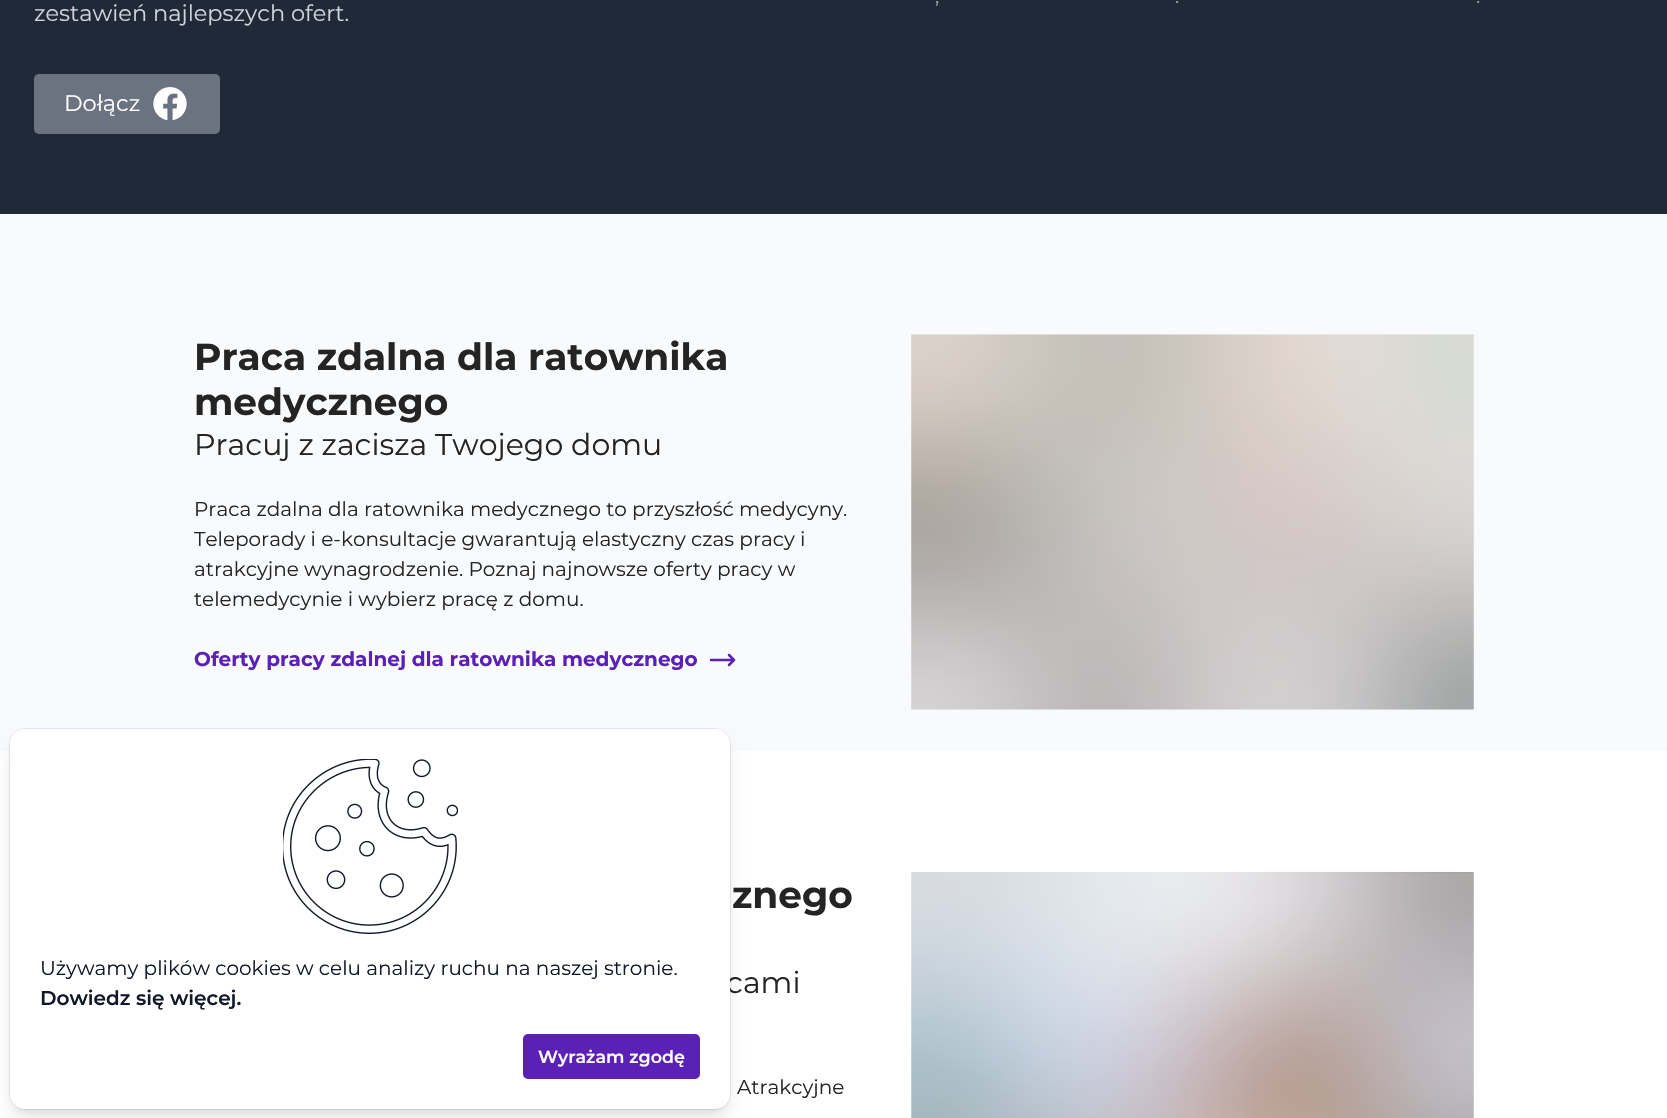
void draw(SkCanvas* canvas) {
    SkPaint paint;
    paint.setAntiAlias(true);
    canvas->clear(0xFFF8FAFC);
    paint.setColor(0xFF1F2937);
    canvas->drawRect(SkRect::MakeXYWH(0, 0, 1667, 214), paint);
    SkFont font1(fontMgr->matchFamilyStyle("Montserrat", SkFontStyle::Normal()), 20);
    font1.setSubpixel(true);
    paint.setColor(0xFF9CA3AF);
    canvas->drawString(",", 935, 3, font1, paint);
    canvas->drawString(".", 1175, 3, font1, paint);
    canvas->drawString(".", 1476, 3, font1, paint);
    SkFont font2(fontMgr->matchFamilyStyle("Montserrat", SkFontStyle::Normal()), 22.5f);
    font2.setSubpixel(true);
    paint.setColor(0xFFD1D5DB);
    canvas->drawString("zestawień najlepszych ofert.", 34, 21, font2, paint);
    paint.setColor(0xFF6B7280);
    canvas->drawRoundRect(SkRect::MakeXYWH(34, 74, 186, 60), 5, 5, paint);
    paint.setColor(0xFFFFFFFF);
    canvas->drawString("Dołącz", 64, 111, font2, paint);
    canvas->drawImageRect(SkImages::DeferredFromEncodedData(SkData::MakeFromFileName("img1.png")), SkRect::MakeXYWH(153, 87, 34, 34), SkSamplingOptions());
    paint.setColor(0xFFF5F6FC);
    canvas->drawRect(SkRect::MakeXYWH(911, 335, 563, 375), paint);
    SkFont font3(fontMgr->matchFamilyStyle("Montserrat", SkFontStyle::Bold()), 37.5f);
    font3.setSubpixel(true);
    paint.setColor(0xFF242424);
    canvas->drawString("Praca zdalna dla ratownika", 194, 370, font3, paint);
    canvas->drawString("medycznego", 194, 415, font3, paint);
    SkFont font4(fontMgr->matchFamilyStyle("Montserrat", SkFontStyle::Normal()), 30);
    font4.setSubpixel(true);
    canvas->drawString("Pracuj z zacisza Twojego domu", 194, 455, font4, paint);
    canvas->drawString("Praca zdalna dla ratownika medycznego to przyszłość medycyny.", 194, 516, font1, paint);
    canvas->drawString("Teleporady i e-konsultacje gwarantują elastyczny czas pracy i", 194, 546, font1, paint);
    canvas->drawString("atrakcyjne wynagrodzenie. Poznaj najnowsze oferty pracy w", 194, 576, font1, paint);
    canvas->drawString("telemedycynie i wybierz pracę z domu.", 194, 606, font1, paint);
    SkFont font5(fontMgr->matchFamilyStyle("Montserrat", SkFontStyle::Bold()), 20);
    font5.setSubpixel(true);
    paint.setColor(0xFF5B21B6);
    canvas->drawString("Oferty pracy zdalnej dla ratownika medycznego", 194, 666, font5, paint);
    paint.setStyle(SkPaint::kStroke_Style);
    paint.setStrokeWidth(2.5f);
    paint.setStrokeCap(SkPaint::kRound_Cap);
    paint.setStrokeJoin(SkPaint::kRound_Join);
    canvas->drawPath(SkPathBuilder().moveTo(729, 655).lineTo(734, 660).moveTo(734, 660).lineTo(729, 665).moveTo(734, 660).lineTo(711, 660).detach(), paint);
    canvas->drawImageRect(SkImages::DeferredFromEncodedData(SkData::MakeFromFileName("img2.png")), SkRect::MakeXYWH(911, 334, 563, 376), SkSamplingOptions());
    paint.setStyle(SkPaint::kFill_Style);
    paint.setColor(0xFFFFFFFF);
    canvas->drawRect(SkRect::MakeXYWH(0, 751, 1667, 367), paint);
    paint.setColor(0xFF242424);
    canvas->drawString("znego", 732, 908, font3, paint);
    canvas->drawString("cami", 726, 993, font4, paint);
    canvas->drawString("Atrakcyjne", 737, 1094, font1, paint);
    canvas->drawImageRect(SkImages::DeferredFromEncodedData(SkData::MakeFromFileName("img3.png")), SkRect::MakeXYWH(911, 872, 563, 246), SkSamplingOptions());
    paint.setColor(0x1A000000);
    paint.setMaskFilter(SkMaskFilter::MakeBlur(kNormal_SkBlurStyle, 4));
    canvas->drawRoundRect(SkRect::MakeXYWH(15, 739, 710, 370), 10, 10, paint);
    paint.setMaskFilter(nullptr);
    paint.setMaskFilter(SkMaskFilter::MakeBlur(kNormal_SkBlurStyle, 9.5f));
    canvas->drawRoundRect(SkRect::MakeXYWH(14, 745, 712, 373), 11, 11, paint);
    paint.setMaskFilter(nullptr);
    paint.setStyle(SkPaint::kStroke_Style);
    paint.setStrokeWidth(1);
    paint.setStrokeCap(SkPaint::kButt_Cap);
    paint.setStrokeJoin(SkPaint::kMiter_Join);
    paint.setColor(0x1A4C1D95);
    canvas->drawRoundRect(SkRect::MakeXYWH(9.5f, 728.5f, 721, 381), 15.5f, 15.5f, paint);
    paint.setStyle(SkPaint::kFill_Style);
    paint.setColor(0xFFFFFFFF);
    canvas->drawRoundRect(SkRect::MakeXYWH(10, 729, 720, 380), 15, 15, paint);
    canvas->drawImageRect(SkImages::DeferredFromEncodedData(SkData::MakeFromFileName("img4.png")), SkRect::MakeXYWH(283, 759, 175, 175), SkSamplingOptions());
    paint.setColor(0xFF111827);
    canvas->drawString("Używamy plików cookies w celu analizy ruchu na naszej stronie.", 40, 975, font1, paint);
    SkFont font6(fontMgr->matchFamilyStyle("Montserrat", SkFontStyle(600, SkFontStyle::kNormal_Width, SkFontStyle::kUpright_Slant)), 20);
    font6.setSubpixel(true);
    canvas->drawString("Dowiedz się więcej.", 40, 1005, font6, paint);
    paint.setColor(0xFF5B21B6);
    canvas->drawRoundRect(SkRect::MakeXYWH(523, 1034, 177, 45), 5, 5, paint);
    SkFont font7(fontMgr->matchFamilyStyle("Montserrat", SkFontStyle(600, SkFontStyle::kNormal_Width, SkFontStyle::kUpright_Slant)), 17.5f);
    font7.setSubpixel(true);
    paint.setColor(0xFFFFFFFF);
    canvas->drawString("Wyrażam zgodę", 538, 1063, font7, paint);
}
